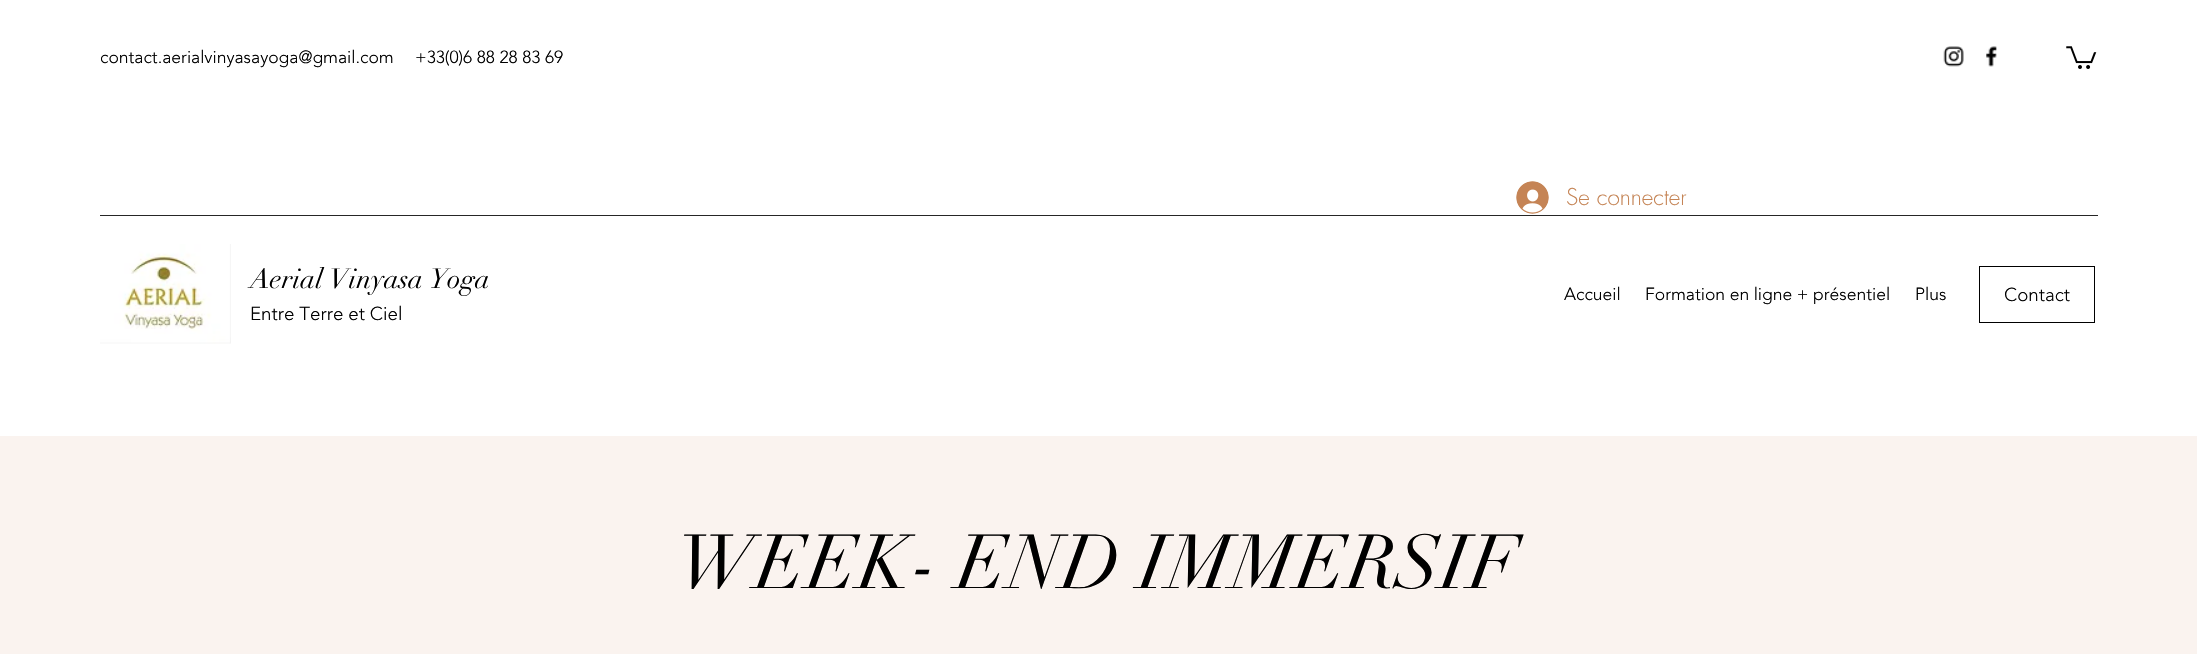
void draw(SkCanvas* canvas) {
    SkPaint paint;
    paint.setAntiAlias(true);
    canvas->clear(0xFFFFFFFF);
    SkFont font1(fontMgr->matchFamilyStyle("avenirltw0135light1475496", SkFontStyle(300, SkFontStyle::kNormal_Width, SkFontStyle::kUpright_Slant)), 17.5f);
    font1.setSubpixel(true);
    paint.setColor(0xFF000000);
    canvas->drawString("contact.aerialvinyasayoga@gmail.com", 100, 63, font1, paint);
    canvas->drawString("+33(0)6 88 28 83 69", 415, 63, font1, paint);
    canvas->drawImageRect(SkImages::DeferredFromEncodedData(SkData::MakeFromFileName("img1.png")), SkRect::MakeXYWH(1943, 46, 21, 21), SkSamplingOptions());
    canvas->drawImageRect(SkImages::DeferredFromEncodedData(SkData::MakeFromFileName("img2.png")), SkRect::MakeXYWH(1986, 46, 11, 21), SkSamplingOptions());
    canvas->drawImageRect(SkImages::DeferredFromEncodedData(SkData::MakeFromFileName("img3.png")), SkRect::MakeXYWH(2066, 46, 31, 23), SkSamplingOptions());
    canvas->drawImageRect(SkImages::DeferredFromEncodedData(SkData::MakeFromFileName("img4.png")), SkRect::MakeXYWH(1516, 181, 33, 33), SkSamplingOptions());
    SkFont font2(fontMgr->matchFamilyStyle("futura", SkFontStyle(300, SkFontStyle::kNormal_Width, SkFontStyle::kUpright_Slant)), 22.5f);
    font2.setSubpixel(true);
    paint.setColor(0xFFC58455);
    canvas->drawString("Se connecter", 1566, 205, font2, paint);
    paint.setColor(0xFF262626);
    canvas->drawRect(SkRect::MakeXYWH(100, 215, 1998, 1), paint);
    canvas->drawImageRect(SkImages::DeferredFromEncodedData(SkData::MakeFromFileName("img5.png")), SkRect::MakeXYWH(100, 244, 131, 100), SkSamplingOptions());
    SkFont font3(fontMgr->matchFamilyStyle("didot", SkFontStyle::Normal()), 27.5f);
    font3.setSubpixel(true);
    paint.setColor(0xFF000000);
    canvas->drawString("Aerial Vinyasa Yoga", 250, 288, font3, paint);
    SkFont font4(fontMgr->matchFamilyStyle("avenirltw0135light1475496", SkFontStyle(300, SkFontStyle::kNormal_Width, SkFontStyle::kUpright_Slant)), 18.75f);
    font4.setSubpixel(true);
    canvas->drawString("Entre Terre et Ciel", 250, 320, font4, paint);
    canvas->drawString("Accueil", 1564, 300, font1, paint);
    canvas->drawString("Formation en ligne + présentiel", 1645, 300, font1, paint);
    canvas->drawString("Plus", 1915, 300, font1, paint);
    paint.setStyle(SkPaint::kStroke_Style);
    paint.setStrokeWidth(1);
    canvas->drawRect(SkRect::MakeXYWH(1979.5f, 266.5f, 115, 56), paint);
    paint.setStyle(SkPaint::kFill_Style);
    canvas->drawString("Contact", 2004, 301, font4, paint);
    paint.setColor(0xFFFAF3EF);
    canvas->drawRect(SkRect::MakeXYWH(0, 436, 2197, 218), paint);
    SkFont font5(fontMgr->matchFamilyStyle("didot", SkFontStyle::Normal()), 75);
    font5.setSubpixel(true);
    paint.setColor(0xFF000000);
    canvas->drawString("WEEK- END IMMERSIF", 678, 588, font5, paint);
}
